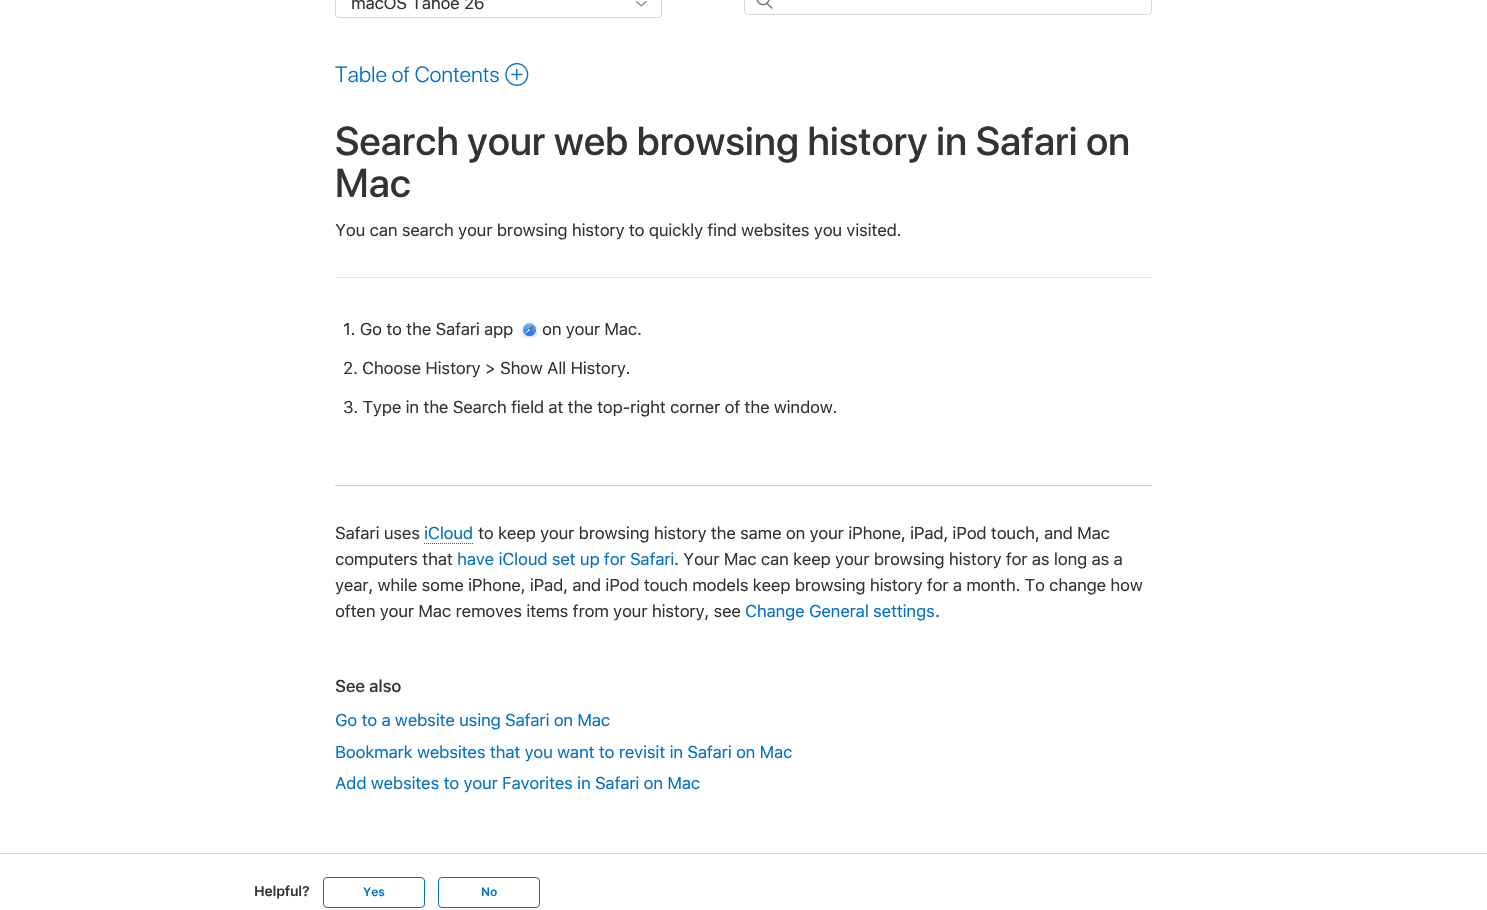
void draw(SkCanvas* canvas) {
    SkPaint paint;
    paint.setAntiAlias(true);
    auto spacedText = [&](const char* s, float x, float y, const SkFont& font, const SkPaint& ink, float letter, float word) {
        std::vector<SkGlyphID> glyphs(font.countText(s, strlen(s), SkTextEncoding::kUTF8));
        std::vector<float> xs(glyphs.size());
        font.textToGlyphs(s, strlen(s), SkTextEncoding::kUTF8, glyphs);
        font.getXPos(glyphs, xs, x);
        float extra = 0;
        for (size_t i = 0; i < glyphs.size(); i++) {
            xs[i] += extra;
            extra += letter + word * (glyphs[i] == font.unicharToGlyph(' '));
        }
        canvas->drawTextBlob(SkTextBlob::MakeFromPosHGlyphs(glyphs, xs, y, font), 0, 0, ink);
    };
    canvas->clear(0xFFFFFFFF);
    paint.setStyle(SkPaint::kStroke_Style);
    paint.setStrokeWidth(1);
    paint.setColor(0xFFD6D6D6);
    canvas->drawRoundRect(SkRect::MakeXYWH(335.5f, -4.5f, 326, 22), 3.5f, 3.5f, paint);
    SkFont font1(fontMgr->matchFamilyStyle("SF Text", SkFontStyle::Normal()), 17);
    font1.setSubpixel(true);
    paint.setStyle(SkPaint::kFill_Style);
    paint.setColor(0xFF333333);
    spacedText("macOS Tahoe 26", 351, 9, font1, paint, -0.36f, 0);
    canvas->drawImageRect(SkImages::DeferredFromEncodedData(SkData::MakeFromFileName("img1.png")), SkRect::MakeXYWH(635, 0, 12, 7), SkSamplingOptions());
    paint.setStyle(SkPaint::kStroke_Style);
    paint.setColor(0xFFD6D6D6);
    canvas->drawRoundRect(SkRect::MakeXYWH(744.5f, -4.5f, 407, 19), 3.5f, 3.5f, paint);
    canvas->drawImageRect(SkImages::DeferredFromEncodedData(SkData::MakeFromFileName("img2.png")), SkRect::MakeXYWH(756, 0, 17, 9), SkSamplingOptions());
    SkFont font2(fontMgr->matchFamilyStyle("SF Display", SkFontStyle(300, SkFontStyle::kNormal_Width, SkFontStyle::kUpright_Slant)), 22);
    font2.setSubpixel(true);
    paint.setStyle(SkPaint::kFill_Style);
    paint.setColor(0xFF0070C9);
    spacedText("Table of Contents", 335, 82, font2, paint, 0.3f, 0);
    canvas->drawImageRect(SkImages::DeferredFromEncodedData(SkData::MakeFromFileName("img3.png")), SkRect::MakeXYWH(505, 63, 24, 23), SkSamplingOptions());
    SkFont font3(fontMgr->matchFamilyStyle("SF Display", SkFontStyle(500, SkFontStyle::kNormal_Width, SkFontStyle::kUpright_Slant)), 40);
    font3.setSubpixel(true);
    paint.setColor(0xFF333333);
    spacedText("Search your web browsing history in Safari on", 335, 155, font3, paint, 0.3f, 0);
    spacedText("Mac", 335, 197, font3, paint, 0.3f, 0);
    spacedText("You can search your browsing history to quickly find websites you visited.", 335, 236, font1, paint, -0.36f, 0);
    paint.setColor(0xFFE6E6E6);
    canvas->drawRect(SkRect::MakeXYWH(335, 277, 817, 1), paint);
    paint.setColor(0xFF333333);
    spacedText("1. Go to the Safari app", 343, 335, font1, paint, -0.36f, 0);
    canvas->drawImageRect(SkImages::DeferredFromEncodedData(SkData::MakeFromFileName("img4.png")), SkRect::MakeXYWH(521, 322, 17, 16), SkSamplingOptions());
    spacedText("on your Mac.", 542, 335, font1, paint, -0.36f, 0);
    spacedText("2. Choose History > Show All History.", 343, 374, font1, paint, -0.36f, 0);
    spacedText("3. Type in the Search field at the top-right corner of the window.", 343, 413, font1, paint, -0.36f, 0);
    paint.setColor(0xFFCCCCCC);
    canvas->drawRect(SkRect::MakeXYWH(335, 485, 817, 1), paint);
    paint.setColor(0xFF333333);
    spacedText("Safari uses", 335, 539, font1, paint, -0.36f, 0);
    paint.setColor(0xFF0070C9);
    spacedText("iCloud", 424, 539, font1, paint, -0.36f, 0);
    paint.setStyle(SkPaint::kStroke_Style);
    paint.setPathEffect(SkDashPathEffect::Make({{1, 1}}, 0));
    canvas->drawPath(SkPathBuilder().moveTo(424, 543.5f).lineTo(473, 543.5f).detach(), paint);
    paint.setPathEffect(nullptr);
    paint.setStyle(SkPaint::kFill_Style);
    paint.setColor(0xFF333333);
    spacedText("to keep your browsing history the same on your iPhone, iPad, iPod touch, and Mac", 478, 539, font1, paint, -0.36f, 0);
    spacedText("computers that", 335, 565, font1, paint, -0.36f, 0);
    paint.setColor(0xFF0070C9);
    spacedText("have iCloud set up for Safari", 457, 565, font1, paint, -0.36f, 0);
    paint.setColor(0xFF333333);
    spacedText(". Your Mac can keep your browsing history for as long as a", 674, 565, font1, paint, -0.36f, 0);
    spacedText("year, while some iPhone, iPad, and iPod touch models keep browsing history for a month. To change how", 335, 591, font1, paint, -0.36f, 0);
    spacedText("often your Mac removes items from your history, see", 335, 617, font1, paint, -0.36f, 0);
    paint.setColor(0xFF0070C9);
    spacedText("Change General settings", 745, 617, font1, paint, -0.36f, 0);
    paint.setColor(0xFF333333);
    spacedText(".", 935, 617, font1, paint, -0.36f, 0);
    SkFont font4(fontMgr->matchFamilyStyle("SF Text", SkFontStyle(500, SkFontStyle::kNormal_Width, SkFontStyle::kUpright_Slant)), 17);
    font4.setSubpixel(true);
    spacedText("See also", 335, 692, font4, paint, -0.36f, 0);
    paint.setColor(0xFF0070C9);
    spacedText("Go to a website using Safari on Mac", 335, 726, font1, paint, -0.36f, 0);
    spacedText("Bookmark websites that you want to revisit in Safari on Mac", 335, 758, font1, paint, -0.36f, 0);
    spacedText("Add websites to your Favorites in Safari on Mac", 335, 789, font1, paint, -0.36f, 0);
    paint.setColor(0xFFD9D9D9);
    canvas->drawRect(SkRect::MakeXYWH(0, 853, 1487, 1), paint);
    SkFont font5(fontMgr->matchFamilyStyle("SF Text", SkFontStyle(600, SkFontStyle::kNormal_Width, SkFontStyle::kUpright_Slant)), 14);
    font5.setSubpixel(true);
    paint.setColor(0xFF333333);
    spacedText("Helpful?", 254, 896, font5, paint, -0.25f, 0);
    paint.setStyle(SkPaint::kStroke_Style);
    paint.setColor(0xFF0070C9);
    canvas->drawRoundRect(SkRect::MakeXYWH(323.5f, 877.5f, 101, 30), 3.5f, 3.5f, paint);
    SkFont font6(fontMgr->matchFamilyStyle("SF Text", SkFontStyle(600, SkFontStyle::kNormal_Width, SkFontStyle::kUpright_Slant)), 12);
    font6.setSubpixel(true);
    paint.setStyle(SkPaint::kFill_Style);
    canvas->drawString("Yes", 363, 896, font6, paint);
    paint.setStyle(SkPaint::kStroke_Style);
    canvas->drawRoundRect(SkRect::MakeXYWH(438.5f, 877.5f, 101, 30), 3.5f, 3.5f, paint);
    paint.setStyle(SkPaint::kFill_Style);
    canvas->drawString("No", 481, 896, font6, paint);
}
